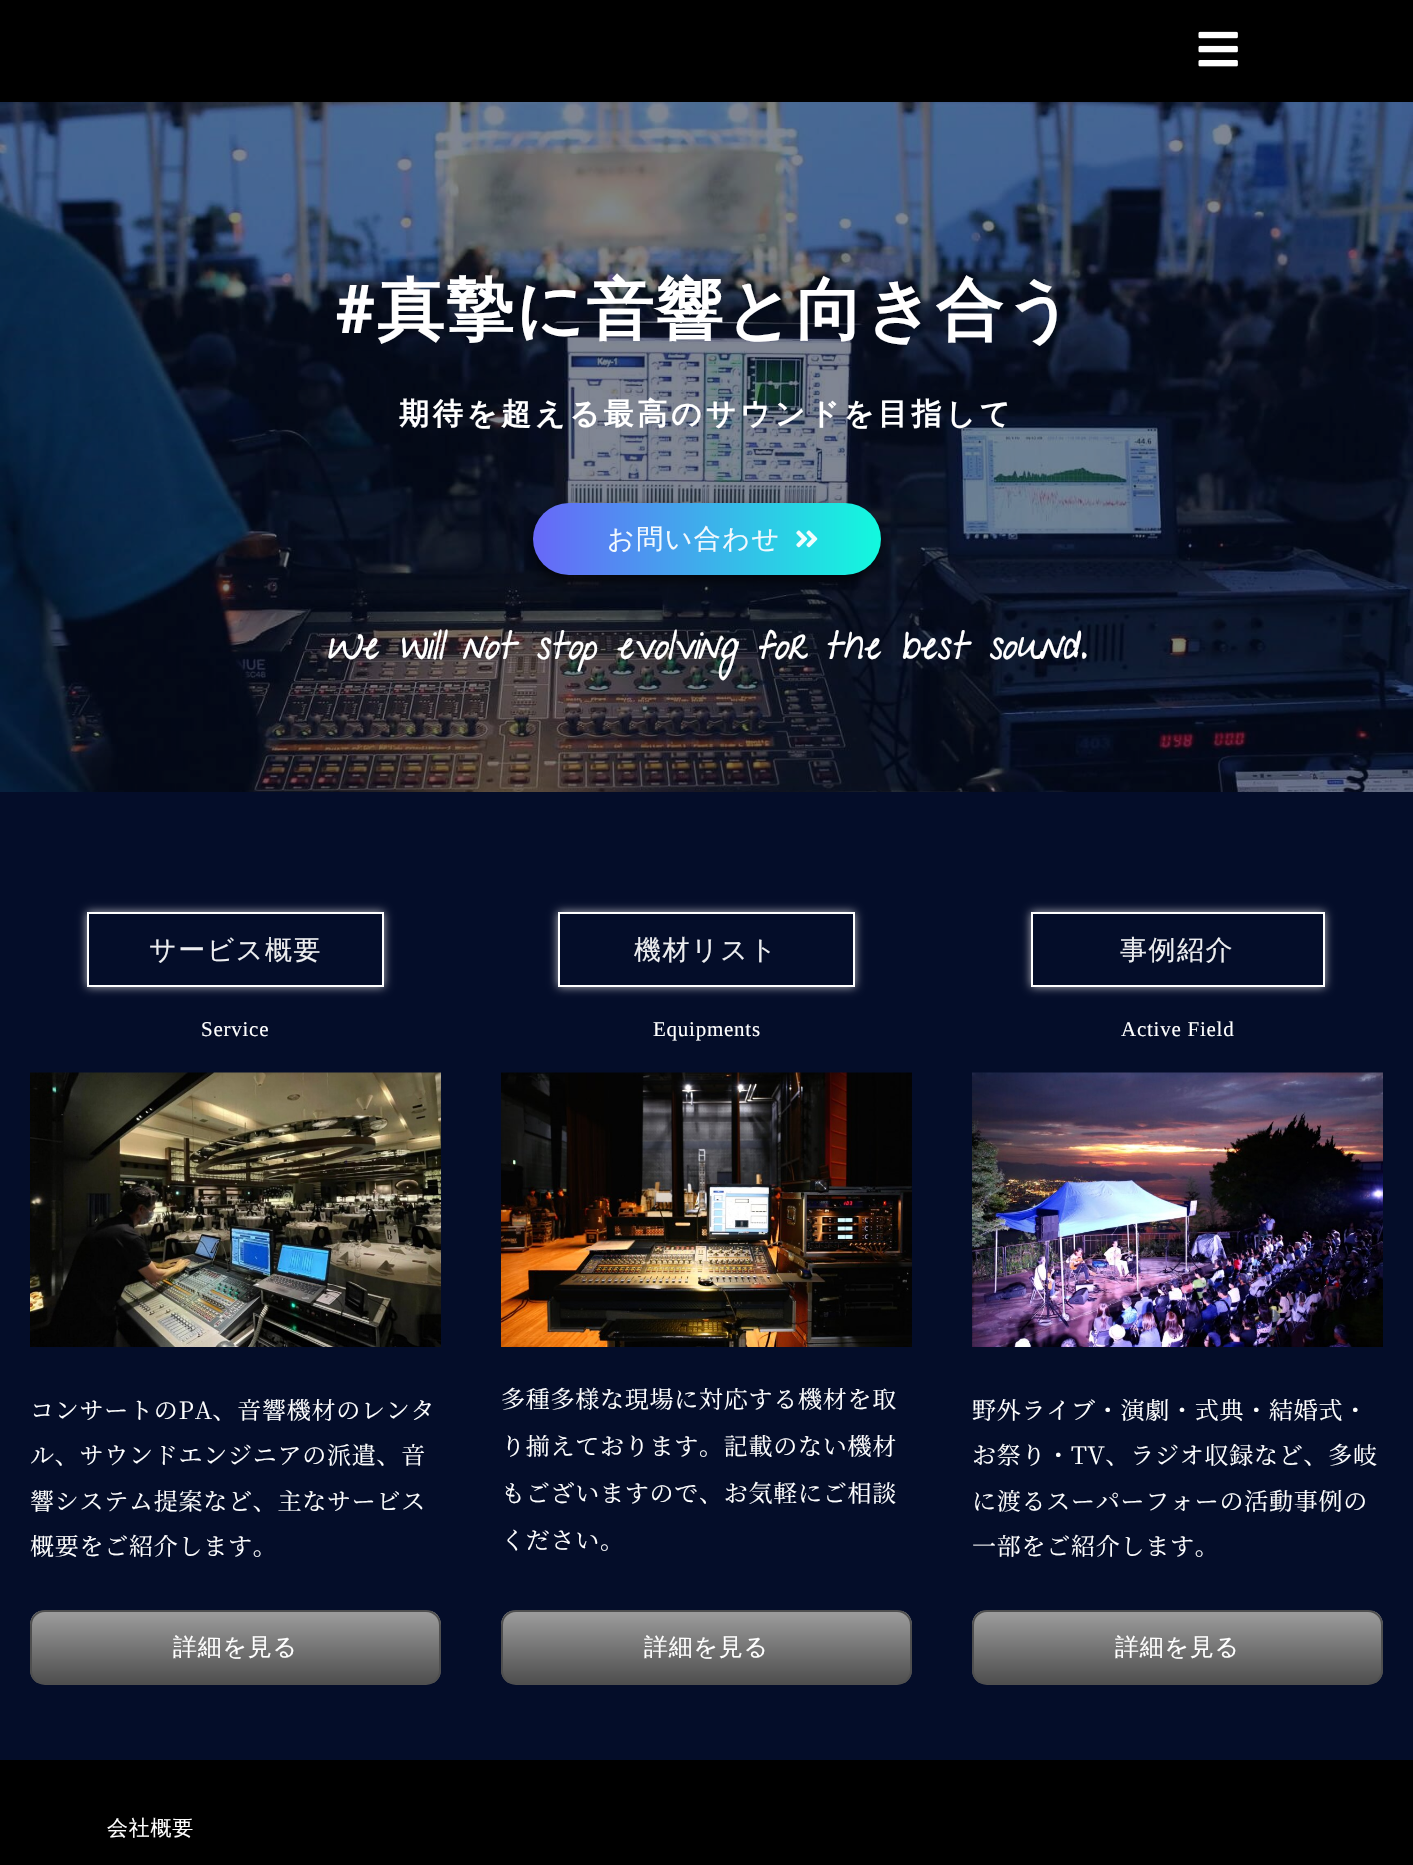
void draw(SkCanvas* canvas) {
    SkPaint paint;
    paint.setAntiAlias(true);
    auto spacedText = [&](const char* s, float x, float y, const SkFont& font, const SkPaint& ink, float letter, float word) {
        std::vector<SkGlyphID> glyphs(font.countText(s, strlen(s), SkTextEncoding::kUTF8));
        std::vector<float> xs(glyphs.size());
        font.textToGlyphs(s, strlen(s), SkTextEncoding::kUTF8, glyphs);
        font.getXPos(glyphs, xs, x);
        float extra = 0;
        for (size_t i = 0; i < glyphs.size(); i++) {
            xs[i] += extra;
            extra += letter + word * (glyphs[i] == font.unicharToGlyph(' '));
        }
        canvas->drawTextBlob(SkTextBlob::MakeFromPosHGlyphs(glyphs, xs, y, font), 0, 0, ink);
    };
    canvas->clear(0xFF000000);
    canvas->drawImageRect(SkImages::DeferredFromEncodedData(SkData::MakeFromFileName("img1.png")), SkRect::MakeXYWH(1198, 31, 40, 36), SkSamplingOptions());
    canvas->drawImageRect(SkImages::DeferredFromEncodedData(SkData::MakeFromFileName("img2.png")), SkRect::MakeXYWH(0, 102, 1413, 690), SkSamplingOptions());
    SkFont font1(fontMgr->matchFamilyStyle("Roboto", SkFontStyle(900, SkFontStyle::kNormal_Width, SkFontStyle::kUpright_Slant)), 67.5f);
    font1.setSubpixel(true);
    paint.setColor(0xFFFFFFFF);
    spacedText("#", 336, 333, font1, paint, 1.75f, 0);
    SkFont font2(fontMgr->matchFamilyStyle("WenQuanYi Zen Hei", SkFontStyle::Bold()), 67.5f);
    font2.setSubpixel(true);
    spacedText("真摯に音響と向き合う", 377, 333, font2, paint, 1.75f, 0);
    SkFont font3(fontMgr->matchFamilyStyle("WenQuanYi Zen Hei", SkFontStyle::Bold()), 30);
    font3.setSubpixel(true);
    spacedText("期待を超える最高のサウンドを目指して", 399, 424, font3, paint, 3.75f, 0);
    paint.setColor(0xB3000000);
    paint.setMaskFilter(SkMaskFilter::MakeBlur(kNormal_SkBlurStyle, 6));
    canvas->drawRoundRect(SkRect::MakeXYWH(533, 509, 348, 72), 36, 36, paint);
    paint.setMaskFilter(nullptr);
    {
        const SkColor colors[] = {0xFF12F9DE, 0xFF6867F8};
        const float stops[] = {0, 1};
        const SkPoint ends[] = {{881, 539}, {533, 539}};
        paint.setShader(SkGradientShader::MakeLinear(ends, colors, stops, 2, SkTileMode::kClamp));
        paint.setAlpha(255);
    }
    canvas->drawRoundRect(SkRect::MakeXYWH(533, 503, 348, 72), 36, 36, paint);
    SkFont font4(fontMgr->matchFamilyStyle("WenQuanYi Zen Hei", SkFontStyle(500, SkFontStyle::kNormal_Width, SkFontStyle::kUpright_Slant)), 27);
    font4.setSubpixel(true);
    paint.setShader(nullptr);
    paint.setColor(0xFFF2F9FE);
    spacedText("お問い合わせ", 607, 548, font4, paint, 1.5f, 0);
    canvas->drawImageRect(SkImages::DeferredFromEncodedData(SkData::MakeFromFileName("img3.png")), SkRect::MakeXYWH(796, 530, 22, 18), SkSamplingOptions());
    SkFont font5(fontMgr->matchFamilyStyle("Give You Glory", SkFontStyle::BoldItalic()), 37.5f);
    font5.setSubpixel(true);
    paint.setColor(0xFFFFFFFF);
    spacedText("We will not stop evolving for the best sound.", 326, 659, font5, paint, 0.75f, 0);
    paint.setColor(0xFF040D29);
    canvas->drawRect(SkRect::MakeXYWH(0, 792, 1413, 968), paint);
    canvas->save();
    canvas->clipPath(SkPathBuilder(SkPathFillType::kEvenOdd).moveTo(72, 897).lineTo(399, 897).lineTo(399, 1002).lineTo(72, 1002).close().moveTo(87, 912).lineTo(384, 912).lineTo(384, 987).lineTo(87, 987).close().detach(), true);
    paint.setColor(0xB8FFFBFB);
    paint.setMaskFilter(SkMaskFilter::MakeBlur(kNormal_SkBlurStyle, 4.5f));
    canvas->drawRect(SkRect::MakeXYWH(87, 912, 297, 75), paint);
    paint.setMaskFilter(nullptr);
    canvas->restore();
    paint.setStyle(SkPaint::kStroke_Style);
    paint.setStrokeWidth(2);
    paint.setColor(0xFFFFFFFF);
    canvas->drawRect(SkRect::MakeXYWH(88, 913, 295, 73), paint);
    paint.setStyle(SkPaint::kFill_Style);
    paint.setColor(0xFFEDEEF0);
    spacedText("サービス概要", 149, 959, font4, paint, 1.5f, 0);
    SkFont font6(fontMgr->matchFamilyStyle("Liberation Serif", SkFontStyle::Normal()), 21);
    font6.setSubpixel(true);
    paint.setColor(0xFFFFFFFF);
    spacedText("Service", 201, 1036, font6, paint, 0.75f, 0);
    canvas->drawImageRect(SkImages::DeferredFromEncodedData(SkData::MakeFromFileName("img4.png")), SkRect::MakeXYWH(30, 1072, 411, 275), SkSamplingOptions());
    SkFont font7(fontMgr->matchFamilyStyle("Noto Serif JP", SkFontStyle::Normal()), 24);
    font7.setSubpixel(true);
    spacedText("コンサートのPA、音響機材のレンタ", 30, 1419, font7, paint, 0.75f, 0);
    spacedText("ル、サウンドエンジニアの派遣、音", 30, 1464, font7, paint, 0.75f, 0);
    spacedText("響システム提案など、主なサービス", 30, 1510, font7, paint, 0.75f, 0);
    spacedText("概要をご紹介します。", 30, 1555, font7, paint, 0.75f, 0);
    canvas->save();
    canvas->clipPath(SkPathBuilder().moveTo(45, 1610).lineTo(426, 1610).cubicTo(434.5f, 1610, 441, 1616.5f, 441, 1625).lineTo(441, 1670).cubicTo(441, 1678.5f, 434.5f, 1685, 426, 1685).lineTo(45, 1685).cubicTo(36.5f, 1685, 30, 1678.5f, 30, 1670).lineTo(30, 1625).cubicTo(30, 1616.5f, 36.5f, 1610, 45, 1610).close().detach(), true);
    {
        const SkColor colors[] = {0xFF9D9D9D, 0xFF4F4F4F};
        const float stops[] = {0, 1};
        const SkPoint ends[] = {{236, 1611}, {236, 1683}};
        paint.setShader(SkGradientShader::MakeLinear(ends, colors, stops, 2, SkTileMode::kClamp));
        paint.setAlpha(255);
    }
    canvas->drawRect(SkRect::MakeXYWH(30, 1611, 411, 72), paint);
    canvas->restore();
    paint.setStyle(SkPaint::kStroke_Style);
    paint.setShader(nullptr);
    paint.setColor(0xFF4F4F4F);
    canvas->drawRoundRect(SkRect::MakeXYWH(31, 1611, 409, 73), 14, 14, paint);
    SkFont font8(fontMgr->matchFamilyStyle("WenQuanYi Zen Hei", SkFontStyle(500, SkFontStyle::kNormal_Width, SkFontStyle::kUpright_Slant)), 24);
    font8.setSubpixel(true);
    paint.setStyle(SkPaint::kFill_Style);
    paint.setColor(0xFFFFFFFF);
    spacedText("詳細を見る", 173, 1655, font8, paint, 0.75f, 0);
    canvas->save();
    canvas->clipPath(SkPathBuilder(SkPathFillType::kEvenOdd).moveTo(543, 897).lineTo(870, 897).lineTo(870, 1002).lineTo(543, 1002).close().moveTo(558, 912).lineTo(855, 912).lineTo(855, 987).lineTo(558, 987).close().detach(), true);
    paint.setColor(0xB8FFFBFB);
    paint.setMaskFilter(SkMaskFilter::MakeBlur(kNormal_SkBlurStyle, 4.5f));
    canvas->drawRect(SkRect::MakeXYWH(558, 912, 297, 75), paint);
    paint.setMaskFilter(nullptr);
    canvas->restore();
    paint.setStyle(SkPaint::kStroke_Style);
    paint.setColor(0xFFFFFFFF);
    canvas->drawRect(SkRect::MakeXYWH(559, 913, 295, 73), paint);
    paint.setStyle(SkPaint::kFill_Style);
    paint.setColor(0xFFEDEEF0);
    spacedText("機材リスト", 634, 959, font4, paint, 1.5f, 0);
    paint.setColor(0xFFFFFFFF);
    spacedText("Equipments", 653, 1036, font6, paint, 0.75f, 0);
    canvas->drawImageRect(SkImages::DeferredFromEncodedData(SkData::MakeFromFileName("img5.png")), SkRect::MakeXYWH(501, 1072, 411, 275), SkSamplingOptions());
    spacedText("多種多様な現場に対応する機材を取", 501, 1408, font7, paint, 0.75f, 0);
    spacedText("り揃えております。記載のない機材", 501, 1455, font7, paint, 0.75f, 0);
    spacedText("もございますので、お気軽にご相談", 501, 1502, font7, paint, 0.75f, 0);
    spacedText("ください。", 501, 1549, font7, paint, 0.75f, 0);
    canvas->save();
    canvas->clipPath(SkPathBuilder().moveTo(516, 1610).lineTo(897, 1610).cubicTo(905.5f, 1610, 912, 1616.5f, 912, 1625).lineTo(912, 1670).cubicTo(912, 1678.5f, 905.5f, 1685, 897, 1685).lineTo(516, 1685).cubicTo(507.5f, 1685, 501, 1678.5f, 501, 1670).lineTo(501, 1625).cubicTo(501, 1616.5f, 507.5f, 1610, 516, 1610).close().detach(), true);
    {
        const SkColor colors[] = {0xFF9D9D9D, 0xFF4F4F4F};
        const float stops[] = {0, 1};
        const SkPoint ends[] = {{707, 1611}, {707, 1683}};
        paint.setShader(SkGradientShader::MakeLinear(ends, colors, stops, 2, SkTileMode::kClamp));
        paint.setAlpha(255);
    }
    canvas->drawRect(SkRect::MakeXYWH(501, 1611, 411, 72), paint);
    canvas->restore();
    paint.setStyle(SkPaint::kStroke_Style);
    paint.setShader(nullptr);
    paint.setColor(0xFF4F4F4F);
    canvas->drawRoundRect(SkRect::MakeXYWH(502, 1611, 409, 73), 14, 14, paint);
    paint.setStyle(SkPaint::kFill_Style);
    paint.setColor(0xFFFFFFFF);
    spacedText("詳細を見る", 644, 1655, font8, paint, 0.75f, 0);
    canvas->save();
    canvas->clipPath(SkPathBuilder(SkPathFillType::kEvenOdd).moveTo(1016, 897).lineTo(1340, 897).lineTo(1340, 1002).lineTo(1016, 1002).close().moveTo(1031, 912).lineTo(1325, 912).lineTo(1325, 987).lineTo(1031, 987).close().detach(), true);
    paint.setColor(0xB8FFFBFB);
    paint.setMaskFilter(SkMaskFilter::MakeBlur(kNormal_SkBlurStyle, 4.5f));
    canvas->drawRect(SkRect::MakeXYWH(1031, 912, 294, 75), paint);
    paint.setMaskFilter(nullptr);
    canvas->restore();
    paint.setStyle(SkPaint::kStroke_Style);
    paint.setColor(0xFFFFFFFF);
    canvas->drawRect(SkRect::MakeXYWH(1032, 913, 292, 73), paint);
    paint.setStyle(SkPaint::kFill_Style);
    paint.setColor(0xFFEDEEF0);
    spacedText("事例紹介", 1120, 959, font4, paint, 1.5f, 0);
    paint.setColor(0xFFFFFFFF);
    spacedText("Active Field", 1121, 1036, font6, paint, 0.75f, 0);
    canvas->drawImageRect(SkImages::DeferredFromEncodedData(SkData::MakeFromFileName("img6.png")), SkRect::MakeXYWH(972, 1072, 411, 275), SkSamplingOptions());
    spacedText("野外ライブ・演劇・式典・結婚式・", 972, 1419, font7, paint, 0.75f, 0);
    spacedText("お祭り・TV、ラジオ収録など、多岐", 972, 1464, font7, paint, 0.75f, 0);
    spacedText("に渡るスーパーフォーの活動事例の", 972, 1510, font7, paint, 0.75f, 0);
    spacedText("一部をご紹介します。", 972, 1555, font7, paint, 0.75f, 0);
    canvas->save();
    canvas->clipPath(SkPathBuilder().moveTo(987, 1610).lineTo(1368, 1610).cubicTo(1376.5f, 1610, 1383, 1616.5f, 1383, 1625).lineTo(1383, 1670).cubicTo(1383, 1678.5f, 1376.5f, 1685, 1368, 1685).lineTo(987, 1685).cubicTo(978.5f, 1685, 972, 1678.5f, 972, 1670).lineTo(972, 1625).cubicTo(972, 1616.5f, 978.5f, 1610, 987, 1610).close().detach(), true);
    {
        const SkColor colors[] = {0xFF9D9D9D, 0xFF4F4F4F};
        const float stops[] = {0, 1};
        const SkPoint ends[] = {{1178, 1611}, {1178, 1683}};
        paint.setShader(SkGradientShader::MakeLinear(ends, colors, stops, 2, SkTileMode::kClamp));
        paint.setAlpha(255);
    }
    canvas->drawRect(SkRect::MakeXYWH(972, 1611, 411, 72), paint);
    canvas->restore();
    paint.setStyle(SkPaint::kStroke_Style);
    paint.setShader(nullptr);
    paint.setColor(0xFF4F4F4F);
    canvas->drawRoundRect(SkRect::MakeXYWH(973, 1611, 409, 73), 14, 14, paint);
    paint.setStyle(SkPaint::kFill_Style);
    paint.setColor(0xFFFFFFFF);
    spacedText("詳細を見る", 1115, 1655, font8, paint, 0.75f, 0);
    SkFont font9(fontMgr->matchFamilyStyle("WenQuanYi Zen Hei", SkFontStyle(500, SkFontStyle::kNormal_Width, SkFontStyle::kUpright_Slant)), 21);
    font9.setSubpixel(true);
    spacedText("会社概要", 107, 1835, font9, paint, 0.75f, 0);
}
